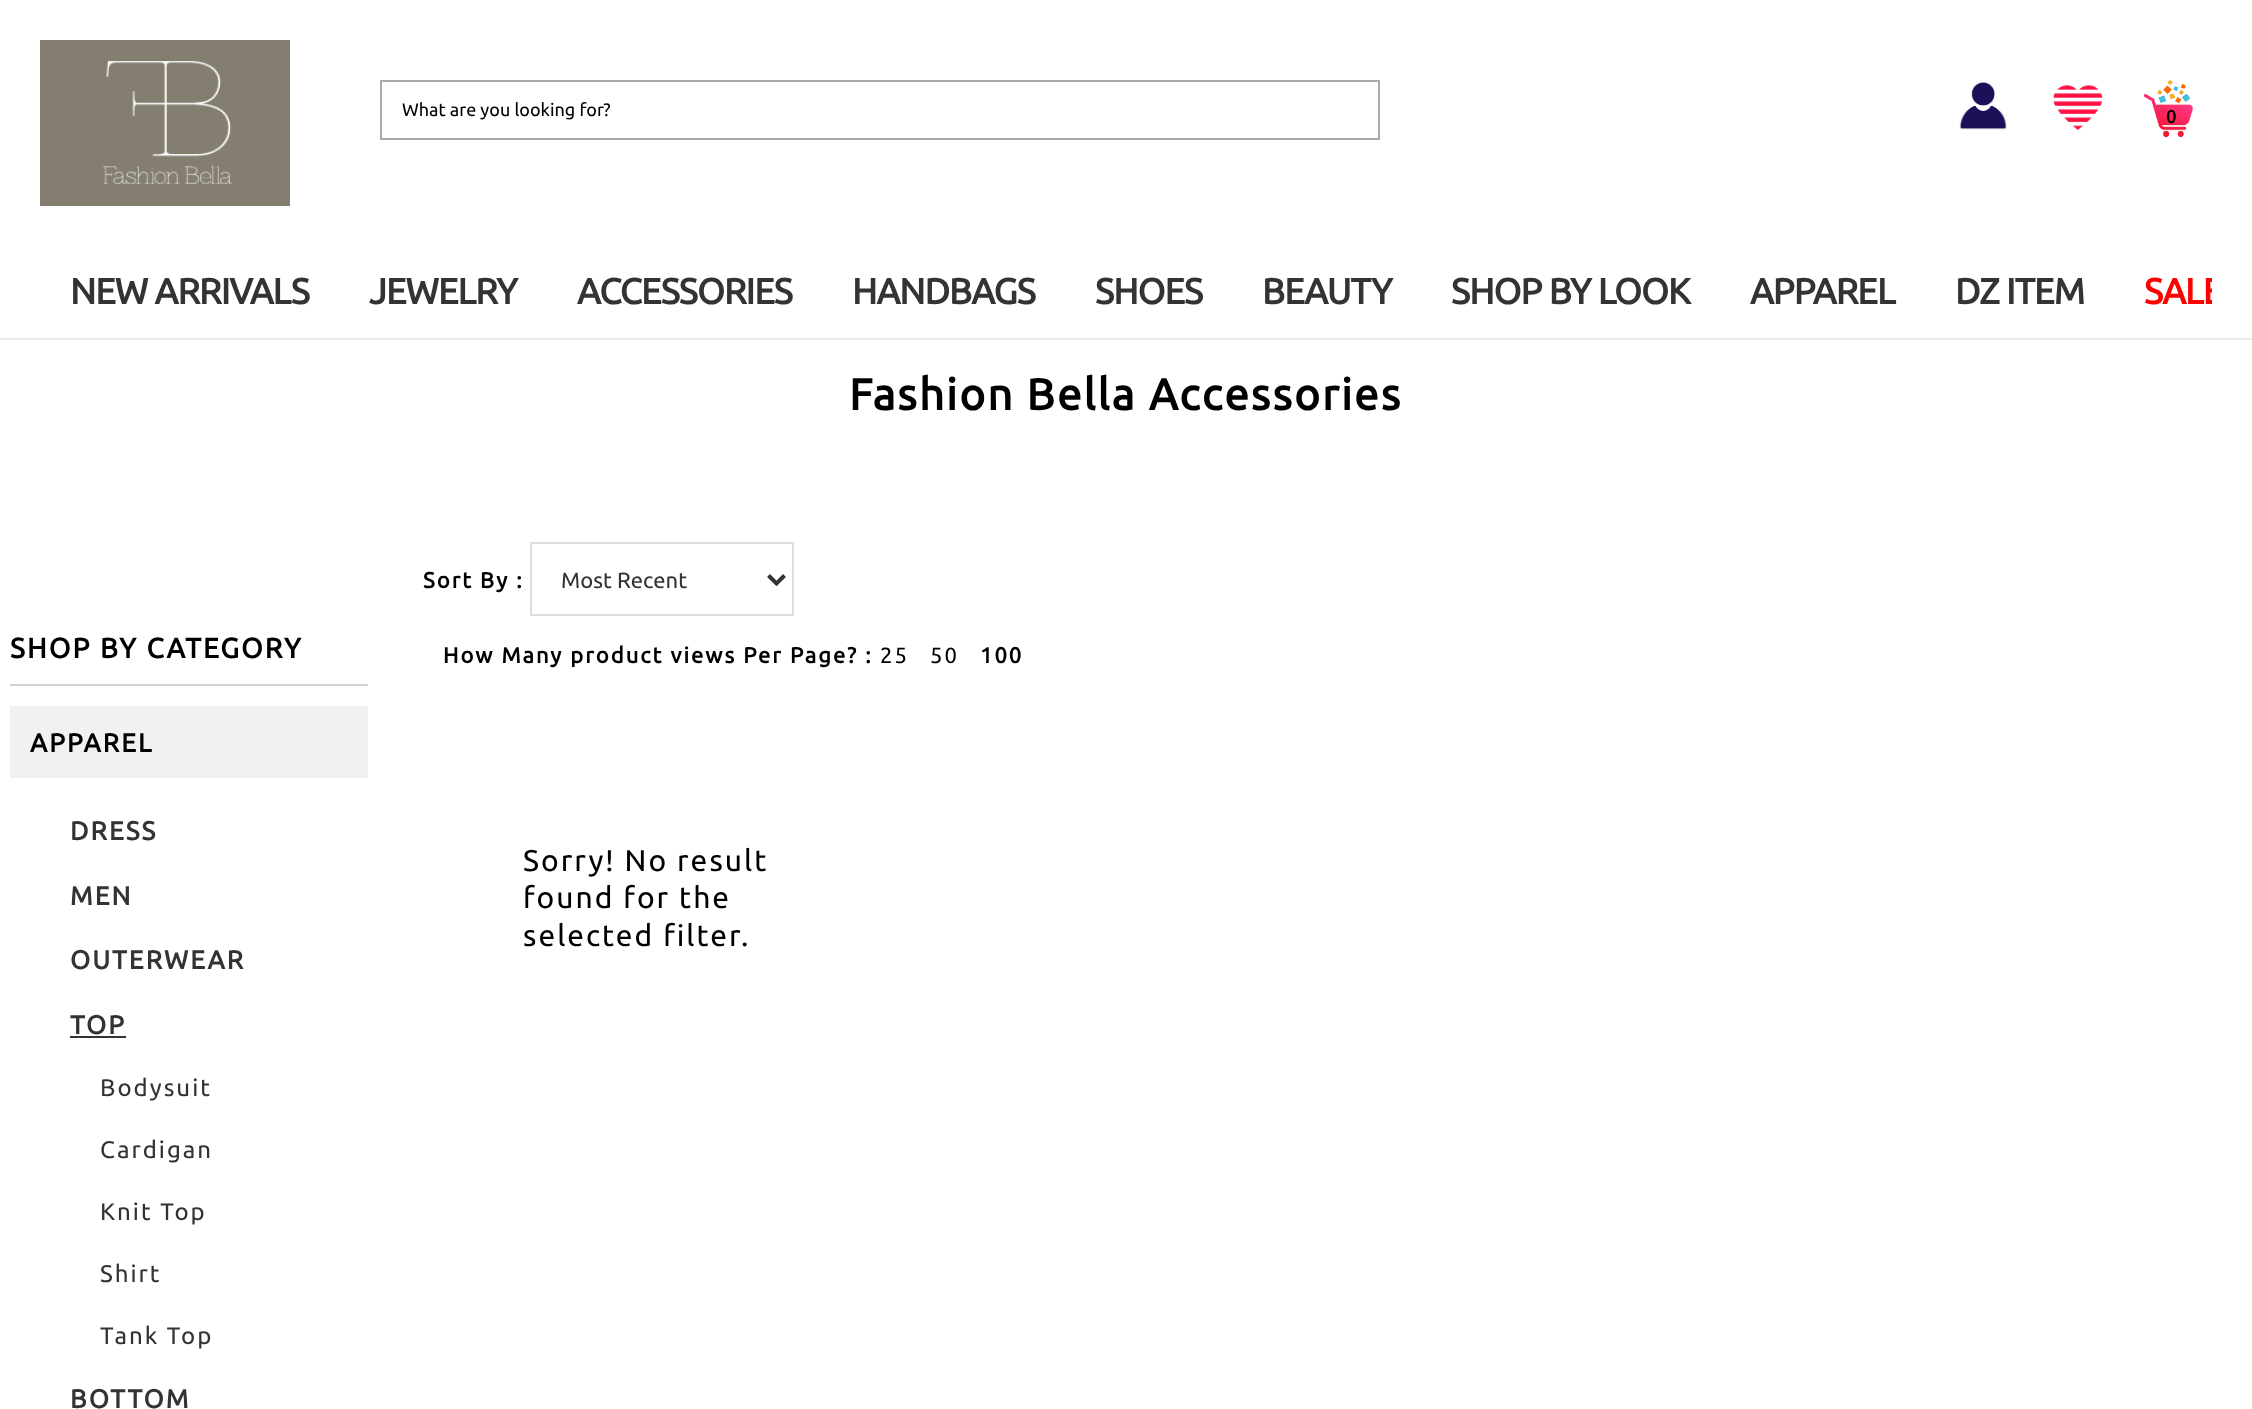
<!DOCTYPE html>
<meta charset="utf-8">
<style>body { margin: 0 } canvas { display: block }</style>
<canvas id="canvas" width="2252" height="1409"></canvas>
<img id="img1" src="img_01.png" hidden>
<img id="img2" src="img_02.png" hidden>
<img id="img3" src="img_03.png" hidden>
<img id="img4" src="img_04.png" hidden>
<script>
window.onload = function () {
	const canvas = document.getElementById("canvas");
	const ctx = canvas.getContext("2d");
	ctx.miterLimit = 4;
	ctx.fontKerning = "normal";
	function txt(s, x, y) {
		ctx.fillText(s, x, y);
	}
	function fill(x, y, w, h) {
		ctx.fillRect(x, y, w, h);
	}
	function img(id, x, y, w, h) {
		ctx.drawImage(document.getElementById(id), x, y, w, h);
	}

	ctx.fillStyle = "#FFFFFF";
	fill(0, 0, 2252, 1409);
	ctx.fillStyle = "#EAEAEA";
	fill(0, 338, 2252, 2);
	img("img1", 40, 40, 250, 166);
	ctx.strokeStyle = "#AAAAAA";
	ctx.lineWidth = 2;
	ctx.strokeRect(381, 81, 998, 58);
	img("img2", 1959, 82, 48, 48);
	img("img3", 2053, 85, 50, 45);
	img("img4", 2144, 80, 49, 58);
	ctx.fillStyle = "#D1D1D1";
	fill(10, 684, 358, 2);
	ctx.fillStyle = "#F1F1F1";
	fill(10, 706, 358, 72);
	ctx.fillStyle = "#333333";
	fill(70, 1036, 56, 2);
	ctx.strokeStyle = "#DCDCDC";
	ctx.strokeRect(531, 543, 262, 72);
	ctx.beginPath();
	ctx.moveTo(768.5, 575.5);
	ctx.lineTo(776.5, 583.5);
	ctx.lineTo(784.5, 575.5);
	ctx.strokeStyle = "#333333";
	ctx.lineWidth = 4;
	ctx.stroke();
	ctx.font = "18px Ubuntu";
	ctx.fillStyle = "#000000";
	txt("What are you looking for?", 402, 116);
	ctx.letterSpacing = "2px";
	ctx.font = "bold 18px Ubuntu";
	txt("0", 2166, 123);
	ctx.letterSpacing = "-1px";
	ctx.font = "bold 36px Ubuntu";
	ctx.fillStyle = "#333333";
	txt("NEW ARRIVALS", 70, 304);
	txt("JEWELRY", 369, 304);
	txt("ACCESSORIES", 577, 304);
	txt("HANDBAGS", 852, 304);
	txt("SHOES", 1095, 304);
	txt("BEAUTY", 1262, 304);
	txt("SHOP BY LOOK", 1451, 304);
	txt("APPAREL", 1750, 304);
	txt("DZ ITEM", 1955, 304);
	ctx.save();
	ctx.beginPath();
	ctx.rect(40, 252, 2172, 86);
	ctx.clip();
	ctx.fillStyle = "#FF0000";
	txt("SALE", 2144, 304);
	ctx.restore();
	ctx.letterSpacing = "2px";
	ctx.font = "bold 44px Ubuntu";
	ctx.fillStyle = "#000000";
	txt("Fashion Bella Accessories", 849, 410);
	ctx.font = "bold 28px Ubuntu";
	txt("SHOP BY CATEGORY", 10, 658);
	ctx.font = "bold 26px Ubuntu";
	txt("APPAREL", 30, 752);
	ctx.fillStyle = "#333333";
	txt("DRESS", 70, 840);
	txt("MEN", 70, 905);
	txt("OUTERWEAR", 70, 969);
	txt("TOP", 70, 1034);
	ctx.font = "24px Ubuntu";
	txt("Bodysuit", 100, 1096);
	txt("Cardigan", 100, 1158);
	txt("Knit Top", 100, 1220);
	txt("Shirt", 100, 1282);
	txt("Tank Top", 100, 1344);
	ctx.font = "bold 26px Ubuntu";
	txt("BOTTOM", 70, 1408);
	ctx.font = "bold 22px Ubuntu";
	ctx.fillStyle = "#000000";
	txt("Sort By :", 423, 588);
	ctx.letterSpacing = "0px";
	ctx.font = "22px Ubuntu";
	ctx.fillStyle = "#333333";
	txt("Most Recent", 561, 588);
	ctx.letterSpacing = "2px";
	ctx.font = "bold 22px Ubuntu";
	ctx.fillStyle = "#000000";
	txt("How Many product views Per Page? :", 443, 663);
	ctx.font = "22px Ubuntu";
	txt("25", 880, 663);
	txt("50", 930, 663);
	ctx.font = "bold 22px Ubuntu";
	txt("100", 980, 663);
	ctx.font = "30px Ubuntu";
	txt("Sorry! No result", 523, 871);
	txt("found for the", 523, 908);
	txt("selected filter.", 523, 946);
};
</script>
